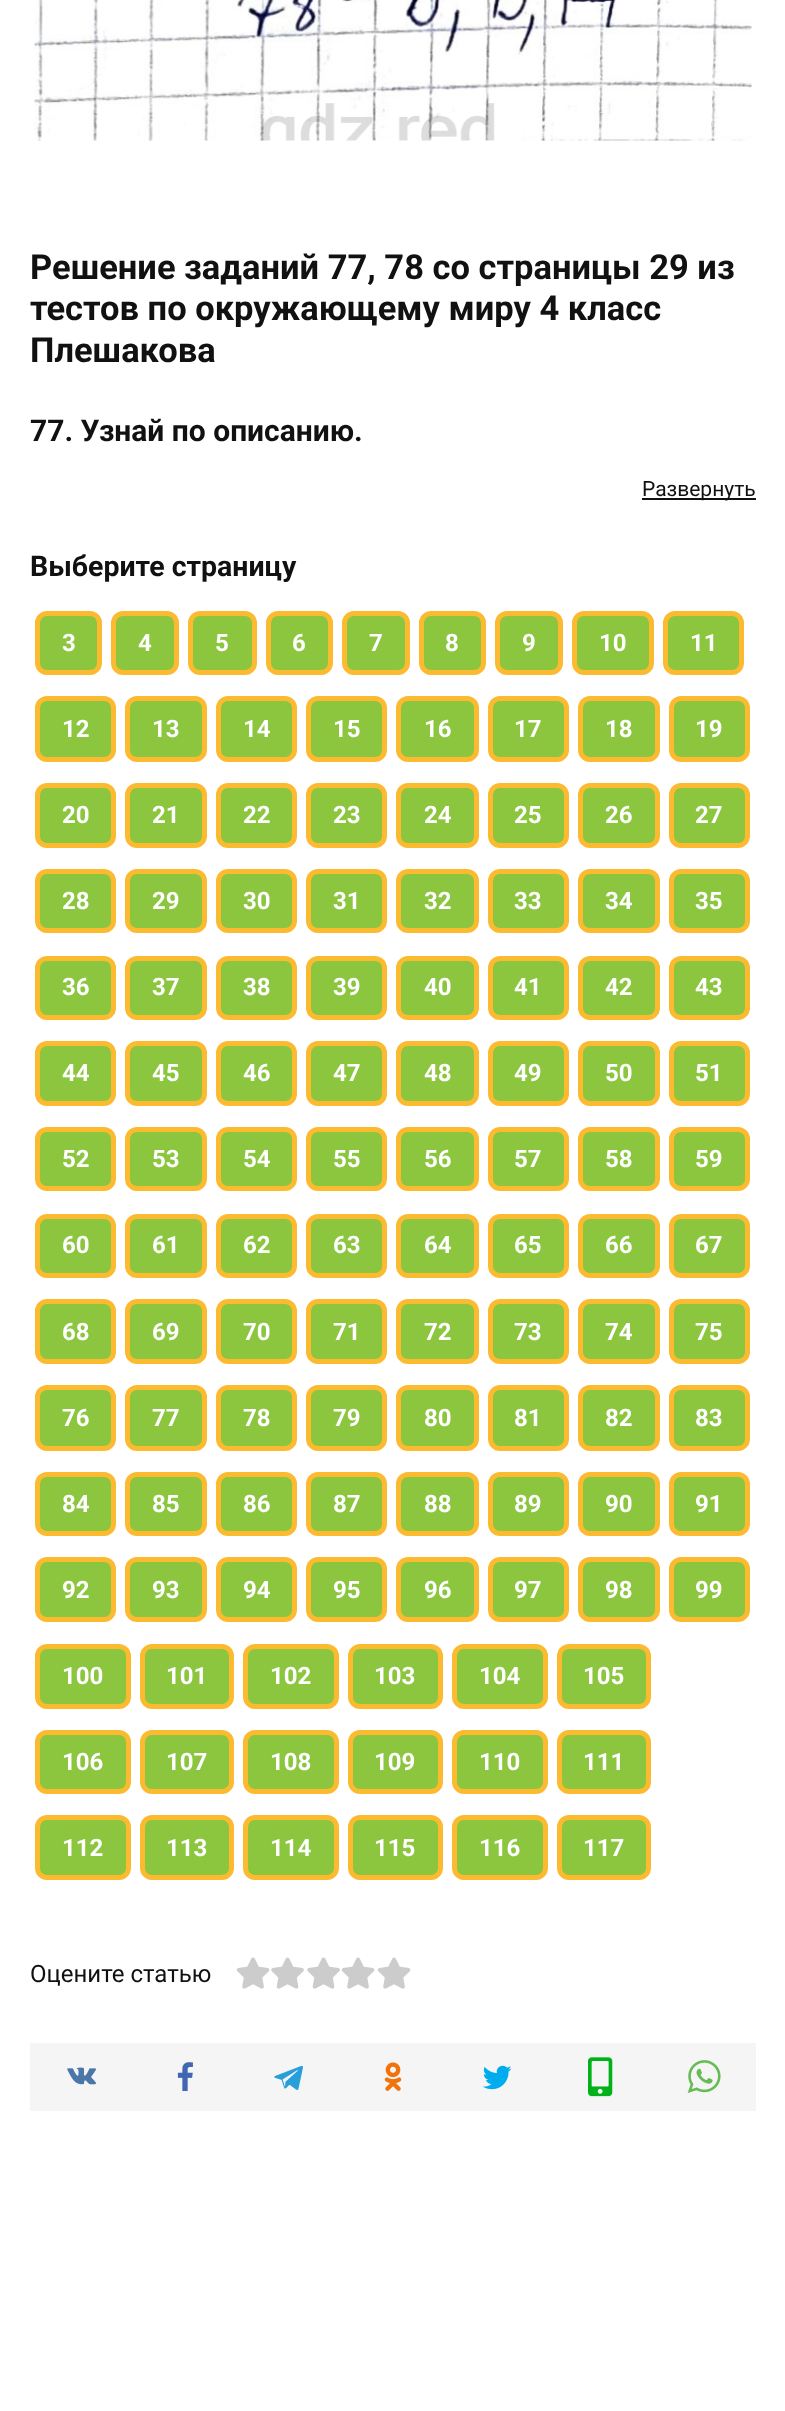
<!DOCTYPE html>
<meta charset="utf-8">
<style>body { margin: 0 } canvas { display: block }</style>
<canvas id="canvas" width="785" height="2411"></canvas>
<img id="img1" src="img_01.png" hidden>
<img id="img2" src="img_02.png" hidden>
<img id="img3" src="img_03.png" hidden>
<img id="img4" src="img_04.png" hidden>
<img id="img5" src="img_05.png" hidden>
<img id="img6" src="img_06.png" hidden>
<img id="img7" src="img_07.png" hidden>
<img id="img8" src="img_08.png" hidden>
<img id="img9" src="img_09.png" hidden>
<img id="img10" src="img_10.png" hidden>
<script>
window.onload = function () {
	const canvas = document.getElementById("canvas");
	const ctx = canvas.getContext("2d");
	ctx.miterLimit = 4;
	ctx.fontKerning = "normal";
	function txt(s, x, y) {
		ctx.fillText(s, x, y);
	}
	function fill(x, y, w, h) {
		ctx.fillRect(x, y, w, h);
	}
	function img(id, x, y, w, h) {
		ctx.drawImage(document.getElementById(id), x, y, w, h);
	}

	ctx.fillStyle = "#FFFFFF";
	fill(0, 0, 785, 2411);
	img("img1", 34, 0, 718, 141);
	ctx.fillStyle = "#111111";
	fill(642, 498, 114, 2);
	ctx.fillStyle = "#8BC63E";
	ctx.beginPath();
	ctx.roundRect(37.5, 613.5, 62, 59, 9.5);
	ctx.fill();
	ctx.strokeStyle = "#FCBA30";
	ctx.lineWidth = 5;
	ctx.stroke();
	ctx.beginPath();
	ctx.roundRect(113.5, 613.5, 63, 59, 9.5);
	ctx.fill();
	ctx.stroke();
	ctx.beginPath();
	ctx.roundRect(190.5, 613.5, 64, 59, 9.5);
	ctx.fill();
	ctx.stroke();
	ctx.beginPath();
	ctx.roundRect(268.5, 613.5, 62, 59, 9.5);
	ctx.fill();
	ctx.stroke();
	ctx.beginPath();
	ctx.roundRect(344.5, 613.5, 63, 59, 9.5);
	ctx.fill();
	ctx.stroke();
	ctx.beginPath();
	ctx.roundRect(421.5, 613.5, 62, 59, 9.5);
	ctx.fill();
	ctx.stroke();
	ctx.beginPath();
	ctx.roundRect(497.5, 613.5, 63, 59, 9.5);
	ctx.fill();
	ctx.stroke();
	ctx.beginPath();
	ctx.roundRect(574.5, 613.5, 77, 59, 9.5);
	ctx.fill();
	ctx.stroke();
	ctx.beginPath();
	ctx.roundRect(665.5, 613.5, 76, 59, 9.5);
	ctx.fill();
	ctx.stroke();
	ctx.beginPath();
	ctx.roundRect(37.5, 698.5, 76, 61, 9.5);
	ctx.fill();
	ctx.stroke();
	ctx.beginPath();
	ctx.roundRect(127.5, 698.5, 77, 61, 9.5);
	ctx.fill();
	ctx.stroke();
	ctx.beginPath();
	ctx.roundRect(218.5, 698.5, 76, 61, 9.5);
	ctx.fill();
	ctx.stroke();
	ctx.beginPath();
	ctx.roundRect(308.5, 698.5, 76, 61, 9.5);
	ctx.fill();
	ctx.stroke();
	ctx.beginPath();
	ctx.roundRect(398.5, 698.5, 78, 61, 9.5);
	ctx.fill();
	ctx.stroke();
	ctx.beginPath();
	ctx.roundRect(490.5, 698.5, 76, 61, 9.5);
	ctx.fill();
	ctx.stroke();
	ctx.beginPath();
	ctx.roundRect(580.5, 698.5, 77, 61, 9.5);
	ctx.fill();
	ctx.stroke();
	ctx.beginPath();
	ctx.roundRect(671.5, 698.5, 76, 61, 9.5);
	ctx.fill();
	ctx.stroke();
	ctx.beginPath();
	ctx.roundRect(37.5, 785.5, 76, 60, 9.5);
	ctx.fill();
	ctx.stroke();
	ctx.beginPath();
	ctx.roundRect(127.5, 785.5, 77, 60, 9.5);
	ctx.fill();
	ctx.stroke();
	ctx.beginPath();
	ctx.roundRect(218.5, 785.5, 76, 60, 9.5);
	ctx.fill();
	ctx.stroke();
	ctx.beginPath();
	ctx.roundRect(308.5, 785.5, 76, 60, 9.5);
	ctx.fill();
	ctx.stroke();
	ctx.beginPath();
	ctx.roundRect(398.5, 785.5, 78, 60, 9.5);
	ctx.fill();
	ctx.stroke();
	ctx.beginPath();
	ctx.roundRect(490.5, 785.5, 76, 60, 9.5);
	ctx.fill();
	ctx.stroke();
	ctx.beginPath();
	ctx.roundRect(580.5, 785.5, 77, 60, 9.5);
	ctx.fill();
	ctx.stroke();
	ctx.beginPath();
	ctx.roundRect(671.5, 785.5, 76, 60, 9.5);
	ctx.fill();
	ctx.stroke();
	ctx.beginPath();
	ctx.roundRect(37.5, 871.5, 76, 59, 9.5);
	ctx.fill();
	ctx.stroke();
	ctx.beginPath();
	ctx.roundRect(127.5, 871.5, 77, 59, 9.5);
	ctx.fill();
	ctx.stroke();
	ctx.beginPath();
	ctx.roundRect(218.5, 871.5, 76, 59, 9.5);
	ctx.fill();
	ctx.stroke();
	ctx.beginPath();
	ctx.roundRect(308.5, 871.5, 76, 59, 9.5);
	ctx.fill();
	ctx.stroke();
	ctx.beginPath();
	ctx.roundRect(398.5, 871.5, 78, 59, 9.5);
	ctx.fill();
	ctx.stroke();
	ctx.beginPath();
	ctx.roundRect(490.5, 871.5, 76, 59, 9.5);
	ctx.fill();
	ctx.stroke();
	ctx.beginPath();
	ctx.roundRect(580.5, 871.5, 77, 59, 9.5);
	ctx.fill();
	ctx.stroke();
	ctx.beginPath();
	ctx.roundRect(671.5, 871.5, 76, 59, 9.5);
	ctx.fill();
	ctx.stroke();
	ctx.beginPath();
	ctx.roundRect(37.5, 958.5, 76, 59, 9.5);
	ctx.fill();
	ctx.stroke();
	ctx.beginPath();
	ctx.roundRect(127.5, 958.5, 77, 59, 9.5);
	ctx.fill();
	ctx.stroke();
	ctx.beginPath();
	ctx.roundRect(218.5, 958.5, 76, 59, 9.5);
	ctx.fill();
	ctx.stroke();
	ctx.beginPath();
	ctx.roundRect(308.5, 958.5, 76, 59, 9.5);
	ctx.fill();
	ctx.stroke();
	ctx.beginPath();
	ctx.roundRect(398.5, 958.5, 78, 59, 9.5);
	ctx.fill();
	ctx.stroke();
	ctx.beginPath();
	ctx.roundRect(490.5, 958.5, 76, 59, 9.5);
	ctx.fill();
	ctx.stroke();
	ctx.beginPath();
	ctx.roundRect(580.5, 958.5, 77, 59, 9.5);
	ctx.fill();
	ctx.stroke();
	ctx.beginPath();
	ctx.roundRect(671.5, 958.5, 76, 59, 9.5);
	ctx.fill();
	ctx.stroke();
	ctx.beginPath();
	ctx.roundRect(37.5, 1043.5, 76, 60, 9.5);
	ctx.fill();
	ctx.stroke();
	ctx.beginPath();
	ctx.roundRect(127.5, 1043.5, 77, 60, 9.5);
	ctx.fill();
	ctx.stroke();
	ctx.beginPath();
	ctx.roundRect(218.5, 1043.5, 76, 60, 9.5);
	ctx.fill();
	ctx.stroke();
	ctx.beginPath();
	ctx.roundRect(308.5, 1043.5, 76, 60, 9.5);
	ctx.fill();
	ctx.stroke();
	ctx.beginPath();
	ctx.roundRect(398.5, 1043.5, 78, 60, 9.5);
	ctx.fill();
	ctx.stroke();
	ctx.beginPath();
	ctx.roundRect(490.5, 1043.5, 76, 60, 9.5);
	ctx.fill();
	ctx.stroke();
	ctx.beginPath();
	ctx.roundRect(580.5, 1043.5, 77, 60, 9.5);
	ctx.fill();
	ctx.stroke();
	ctx.beginPath();
	ctx.roundRect(671.5, 1043.5, 76, 60, 9.5);
	ctx.fill();
	ctx.stroke();
	ctx.beginPath();
	ctx.roundRect(37.5, 1129.5, 76, 59, 9.5);
	ctx.fill();
	ctx.stroke();
	ctx.beginPath();
	ctx.roundRect(127.5, 1129.5, 77, 59, 9.5);
	ctx.fill();
	ctx.stroke();
	ctx.beginPath();
	ctx.roundRect(218.5, 1129.5, 76, 59, 9.5);
	ctx.fill();
	ctx.stroke();
	ctx.beginPath();
	ctx.roundRect(308.5, 1129.5, 76, 59, 9.5);
	ctx.fill();
	ctx.stroke();
	ctx.beginPath();
	ctx.roundRect(398.5, 1129.5, 78, 59, 9.5);
	ctx.fill();
	ctx.stroke();
	ctx.beginPath();
	ctx.roundRect(490.5, 1129.5, 76, 59, 9.5);
	ctx.fill();
	ctx.stroke();
	ctx.beginPath();
	ctx.roundRect(580.5, 1129.5, 77, 59, 9.5);
	ctx.fill();
	ctx.stroke();
	ctx.beginPath();
	ctx.roundRect(671.5, 1129.5, 76, 59, 9.5);
	ctx.fill();
	ctx.stroke();
	ctx.beginPath();
	ctx.roundRect(37.5, 1216.5, 76, 59, 9.5);
	ctx.fill();
	ctx.stroke();
	ctx.beginPath();
	ctx.roundRect(127.5, 1216.5, 77, 59, 9.5);
	ctx.fill();
	ctx.stroke();
	ctx.beginPath();
	ctx.roundRect(218.5, 1216.5, 76, 59, 9.5);
	ctx.fill();
	ctx.stroke();
	ctx.beginPath();
	ctx.roundRect(308.5, 1216.5, 76, 59, 9.5);
	ctx.fill();
	ctx.stroke();
	ctx.beginPath();
	ctx.roundRect(398.5, 1216.5, 78, 59, 9.5);
	ctx.fill();
	ctx.stroke();
	ctx.beginPath();
	ctx.roundRect(490.5, 1216.5, 76, 59, 9.5);
	ctx.fill();
	ctx.stroke();
	ctx.beginPath();
	ctx.roundRect(580.5, 1216.5, 77, 59, 9.5);
	ctx.fill();
	ctx.stroke();
	ctx.beginPath();
	ctx.roundRect(671.5, 1216.5, 76, 59, 9.5);
	ctx.fill();
	ctx.stroke();
	ctx.beginPath();
	ctx.roundRect(37.5, 1301.5, 76, 60, 9.5);
	ctx.fill();
	ctx.stroke();
	ctx.beginPath();
	ctx.roundRect(127.5, 1301.5, 77, 60, 9.5);
	ctx.fill();
	ctx.stroke();
	ctx.beginPath();
	ctx.roundRect(218.5, 1301.5, 76, 60, 9.5);
	ctx.fill();
	ctx.stroke();
	ctx.beginPath();
	ctx.roundRect(308.5, 1301.5, 76, 60, 9.5);
	ctx.fill();
	ctx.stroke();
	ctx.beginPath();
	ctx.roundRect(398.5, 1301.5, 78, 60, 9.5);
	ctx.fill();
	ctx.stroke();
	ctx.beginPath();
	ctx.roundRect(490.5, 1301.5, 76, 60, 9.5);
	ctx.fill();
	ctx.stroke();
	ctx.beginPath();
	ctx.roundRect(580.5, 1301.5, 77, 60, 9.5);
	ctx.fill();
	ctx.stroke();
	ctx.beginPath();
	ctx.roundRect(671.5, 1301.5, 76, 60, 9.5);
	ctx.fill();
	ctx.stroke();
	ctx.beginPath();
	ctx.roundRect(37.5, 1387.5, 76, 61, 9.5);
	ctx.fill();
	ctx.stroke();
	ctx.beginPath();
	ctx.roundRect(127.5, 1387.5, 77, 61, 9.5);
	ctx.fill();
	ctx.stroke();
	ctx.beginPath();
	ctx.roundRect(218.5, 1387.5, 76, 61, 9.5);
	ctx.fill();
	ctx.stroke();
	ctx.beginPath();
	ctx.roundRect(308.5, 1387.5, 76, 61, 9.5);
	ctx.fill();
	ctx.stroke();
	ctx.beginPath();
	ctx.roundRect(398.5, 1387.5, 78, 61, 9.5);
	ctx.fill();
	ctx.stroke();
	ctx.beginPath();
	ctx.roundRect(490.5, 1387.5, 76, 61, 9.5);
	ctx.fill();
	ctx.stroke();
	ctx.beginPath();
	ctx.roundRect(580.5, 1387.5, 77, 61, 9.5);
	ctx.fill();
	ctx.stroke();
	ctx.beginPath();
	ctx.roundRect(671.5, 1387.5, 76, 61, 9.5);
	ctx.fill();
	ctx.stroke();
	ctx.beginPath();
	ctx.roundRect(37.5, 1474.5, 76, 59, 9.5);
	ctx.fill();
	ctx.stroke();
	ctx.beginPath();
	ctx.roundRect(127.5, 1474.5, 77, 59, 9.5);
	ctx.fill();
	ctx.stroke();
	ctx.beginPath();
	ctx.roundRect(218.5, 1474.5, 76, 59, 9.5);
	ctx.fill();
	ctx.stroke();
	ctx.beginPath();
	ctx.roundRect(308.5, 1474.5, 76, 59, 9.5);
	ctx.fill();
	ctx.stroke();
	ctx.beginPath();
	ctx.roundRect(398.5, 1474.5, 78, 59, 9.5);
	ctx.fill();
	ctx.stroke();
	ctx.beginPath();
	ctx.roundRect(490.5, 1474.5, 76, 59, 9.5);
	ctx.fill();
	ctx.stroke();
	ctx.beginPath();
	ctx.roundRect(580.5, 1474.5, 77, 59, 9.5);
	ctx.fill();
	ctx.stroke();
	ctx.beginPath();
	ctx.roundRect(671.5, 1474.5, 76, 59, 9.5);
	ctx.fill();
	ctx.stroke();
	ctx.beginPath();
	ctx.roundRect(37.5, 1559.5, 76, 60, 9.5);
	ctx.fill();
	ctx.stroke();
	ctx.beginPath();
	ctx.roundRect(127.5, 1559.5, 77, 60, 9.5);
	ctx.fill();
	ctx.stroke();
	ctx.beginPath();
	ctx.roundRect(218.5, 1559.5, 76, 60, 9.5);
	ctx.fill();
	ctx.stroke();
	ctx.beginPath();
	ctx.roundRect(308.5, 1559.5, 76, 60, 9.5);
	ctx.fill();
	ctx.stroke();
	ctx.beginPath();
	ctx.roundRect(398.5, 1559.5, 78, 60, 9.5);
	ctx.fill();
	ctx.stroke();
	ctx.beginPath();
	ctx.roundRect(490.5, 1559.5, 76, 60, 9.5);
	ctx.fill();
	ctx.stroke();
	ctx.beginPath();
	ctx.roundRect(580.5, 1559.5, 77, 60, 9.5);
	ctx.fill();
	ctx.stroke();
	ctx.beginPath();
	ctx.roundRect(671.5, 1559.5, 76, 60, 9.5);
	ctx.fill();
	ctx.stroke();
	ctx.beginPath();
	ctx.roundRect(37.5, 1646.5, 91, 60, 9.5);
	ctx.fill();
	ctx.stroke();
	ctx.beginPath();
	ctx.roundRect(142.5, 1646.5, 89, 60, 9.5);
	ctx.fill();
	ctx.stroke();
	ctx.beginPath();
	ctx.roundRect(245.5, 1646.5, 91, 60, 9.5);
	ctx.fill();
	ctx.stroke();
	ctx.beginPath();
	ctx.roundRect(350.5, 1646.5, 90, 60, 9.5);
	ctx.fill();
	ctx.stroke();
	ctx.beginPath();
	ctx.roundRect(454.5, 1646.5, 91, 60, 9.5);
	ctx.fill();
	ctx.stroke();
	ctx.beginPath();
	ctx.roundRect(559.5, 1646.5, 89, 60, 9.5);
	ctx.fill();
	ctx.stroke();
	ctx.beginPath();
	ctx.roundRect(37.5, 1732.5, 91, 59, 9.5);
	ctx.fill();
	ctx.stroke();
	ctx.beginPath();
	ctx.roundRect(142.5, 1732.5, 89, 59, 9.5);
	ctx.fill();
	ctx.stroke();
	ctx.beginPath();
	ctx.roundRect(245.5, 1732.5, 91, 59, 9.5);
	ctx.fill();
	ctx.stroke();
	ctx.beginPath();
	ctx.roundRect(350.5, 1732.5, 90, 59, 9.5);
	ctx.fill();
	ctx.stroke();
	ctx.beginPath();
	ctx.roundRect(454.5, 1732.5, 91, 59, 9.5);
	ctx.fill();
	ctx.stroke();
	ctx.beginPath();
	ctx.roundRect(559.5, 1732.5, 89, 59, 9.5);
	ctx.fill();
	ctx.stroke();
	ctx.beginPath();
	ctx.roundRect(37.5, 1817.5, 91, 60, 9.5);
	ctx.fill();
	ctx.stroke();
	ctx.beginPath();
	ctx.roundRect(142.5, 1817.5, 89, 60, 9.5);
	ctx.fill();
	ctx.stroke();
	ctx.beginPath();
	ctx.roundRect(245.5, 1817.5, 91, 60, 9.5);
	ctx.fill();
	ctx.stroke();
	ctx.beginPath();
	ctx.roundRect(350.5, 1817.5, 90, 60, 9.5);
	ctx.fill();
	ctx.stroke();
	ctx.beginPath();
	ctx.roundRect(454.5, 1817.5, 91, 60, 9.5);
	ctx.fill();
	ctx.stroke();
	ctx.beginPath();
	ctx.roundRect(559.5, 1817.5, 89, 60, 9.5);
	ctx.fill();
	ctx.stroke();
	img("img2", 236, 1957, 34, 32);
	img("img3", 271, 1957, 33, 32);
	img("img3", 307, 1957, 33, 32);
	img("img2", 341, 1957, 34, 32);
	img("img2", 377, 1957, 34, 32);
	ctx.fillStyle = "#F5F5F5";
	fill(30, 2043, 726, 68);
	img("img4", 67, 2067, 29, 18);
	img("img5", 177, 2062, 16, 29);
	img("img6", 274, 2065, 29, 25);
	img("img7", 384, 2062, 18, 29);
	img("img8", 482, 2065, 30, 25);
	img("img9", 588, 2057, 25, 40);
	img("img10", 687, 2060, 34, 33);
	ctx.font = "bold 34.5px Roboto";
	ctx.fillStyle = "#111111";
	txt("Решение заданий 77, 78 со страницы 29 из", 30, 279);
	txt("тестов по окружающему миру 4 класс", 30, 320);
	txt("Плешакова", 30, 362);
	ctx.font = "bold 30px Roboto";
	txt("77. Узнай по описанию.", 30, 441);
	ctx.font = "21px Roboto";
	txt("Развернуть", 642, 496);
	ctx.font = "bold 28.5px Roboto";
	txt("Выберите страницу", 30, 576);
	ctx.font = "bold 24px Roboto";
	ctx.fillStyle = "#FFFFFF";
	txt("3", 62, 651);
	txt("4", 138, 651);
	txt("5", 215, 651);
	txt("6", 292, 651);
	txt("7", 369, 651);
	txt("8", 445, 651);
	txt("9", 522, 651);
	txt("10", 599, 651);
	txt("11", 690, 651);
	txt("12", 62, 737);
	txt("13", 152, 737);
	txt("14", 243, 737);
	txt("15", 333, 737);
	txt("16", 424, 737);
	txt("17", 514, 737);
	txt("18", 605, 737);
	txt("19", 695, 737);
	txt("20", 62, 823);
	txt("21", 152, 823);
	txt("22", 243, 823);
	txt("23", 333, 823);
	txt("24", 424, 823);
	txt("25", 514, 823);
	txt("26", 605, 823);
	txt("27", 695, 823);
	txt("28", 62, 909);
	txt("29", 152, 909);
	txt("30", 243, 909);
	txt("31", 333, 909);
	txt("32", 424, 909);
	txt("33", 514, 909);
	txt("34", 605, 909);
	txt("35", 695, 909);
	txt("36", 62, 995);
	txt("37", 152, 995);
	txt("38", 243, 995);
	txt("39", 333, 995);
	txt("40", 424, 995);
	txt("41", 514, 995);
	txt("42", 605, 995);
	txt("43", 695, 995);
	txt("44", 62, 1081);
	txt("45", 152, 1081);
	txt("46", 243, 1081);
	txt("47", 333, 1081);
	txt("48", 424, 1081);
	txt("49", 514, 1081);
	txt("50", 605, 1081);
	txt("51", 695, 1081);
	txt("52", 62, 1167);
	txt("53", 152, 1167);
	txt("54", 243, 1167);
	txt("55", 333, 1167);
	txt("56", 424, 1167);
	txt("57", 514, 1167);
	txt("58", 605, 1167);
	txt("59", 695, 1167);
	txt("60", 62, 1253);
	txt("61", 152, 1253);
	txt("62", 243, 1253);
	txt("63", 333, 1253);
	txt("64", 424, 1253);
	txt("65", 514, 1253);
	txt("66", 605, 1253);
	txt("67", 695, 1253);
	txt("68", 62, 1340);
	txt("69", 152, 1340);
	txt("70", 243, 1340);
	txt("71", 333, 1340);
	txt("72", 424, 1340);
	txt("73", 514, 1340);
	txt("74", 605, 1340);
	txt("75", 695, 1340);
	txt("76", 62, 1426);
	txt("77", 152, 1426);
	txt("78", 243, 1426);
	txt("79", 333, 1426);
	txt("80", 424, 1426);
	txt("81", 514, 1426);
	txt("82", 605, 1426);
	txt("83", 695, 1426);
	txt("84", 62, 1512);
	txt("85", 152, 1512);
	txt("86", 243, 1512);
	txt("87", 333, 1512);
	txt("88", 424, 1512);
	txt("89", 514, 1512);
	txt("90", 605, 1512);
	txt("91", 695, 1512);
	txt("92", 62, 1598);
	txt("93", 152, 1598);
	txt("94", 243, 1598);
	txt("95", 333, 1598);
	txt("96", 424, 1598);
	txt("97", 514, 1598);
	txt("98", 605, 1598);
	txt("99", 695, 1598);
	txt("100", 62, 1684);
	txt("101", 166, 1684);
	txt("102", 270, 1684);
	txt("103", 374, 1684);
	txt("104", 479, 1684);
	txt("105", 583, 1684);
	txt("106", 62, 1770);
	txt("107", 166, 1770);
	txt("108", 270, 1770);
	txt("109", 374, 1770);
	txt("110", 479, 1770);
	txt("111", 583, 1770);
	txt("112", 62, 1856);
	txt("113", 166, 1856);
	txt("114", 270, 1856);
	txt("115", 374, 1856);
	txt("116", 479, 1856);
	txt("117", 583, 1856);
	ctx.font = "24px Roboto";
	ctx.fillStyle = "#111111";
	txt("Оцените статью", 30, 1982);
};
</script>
